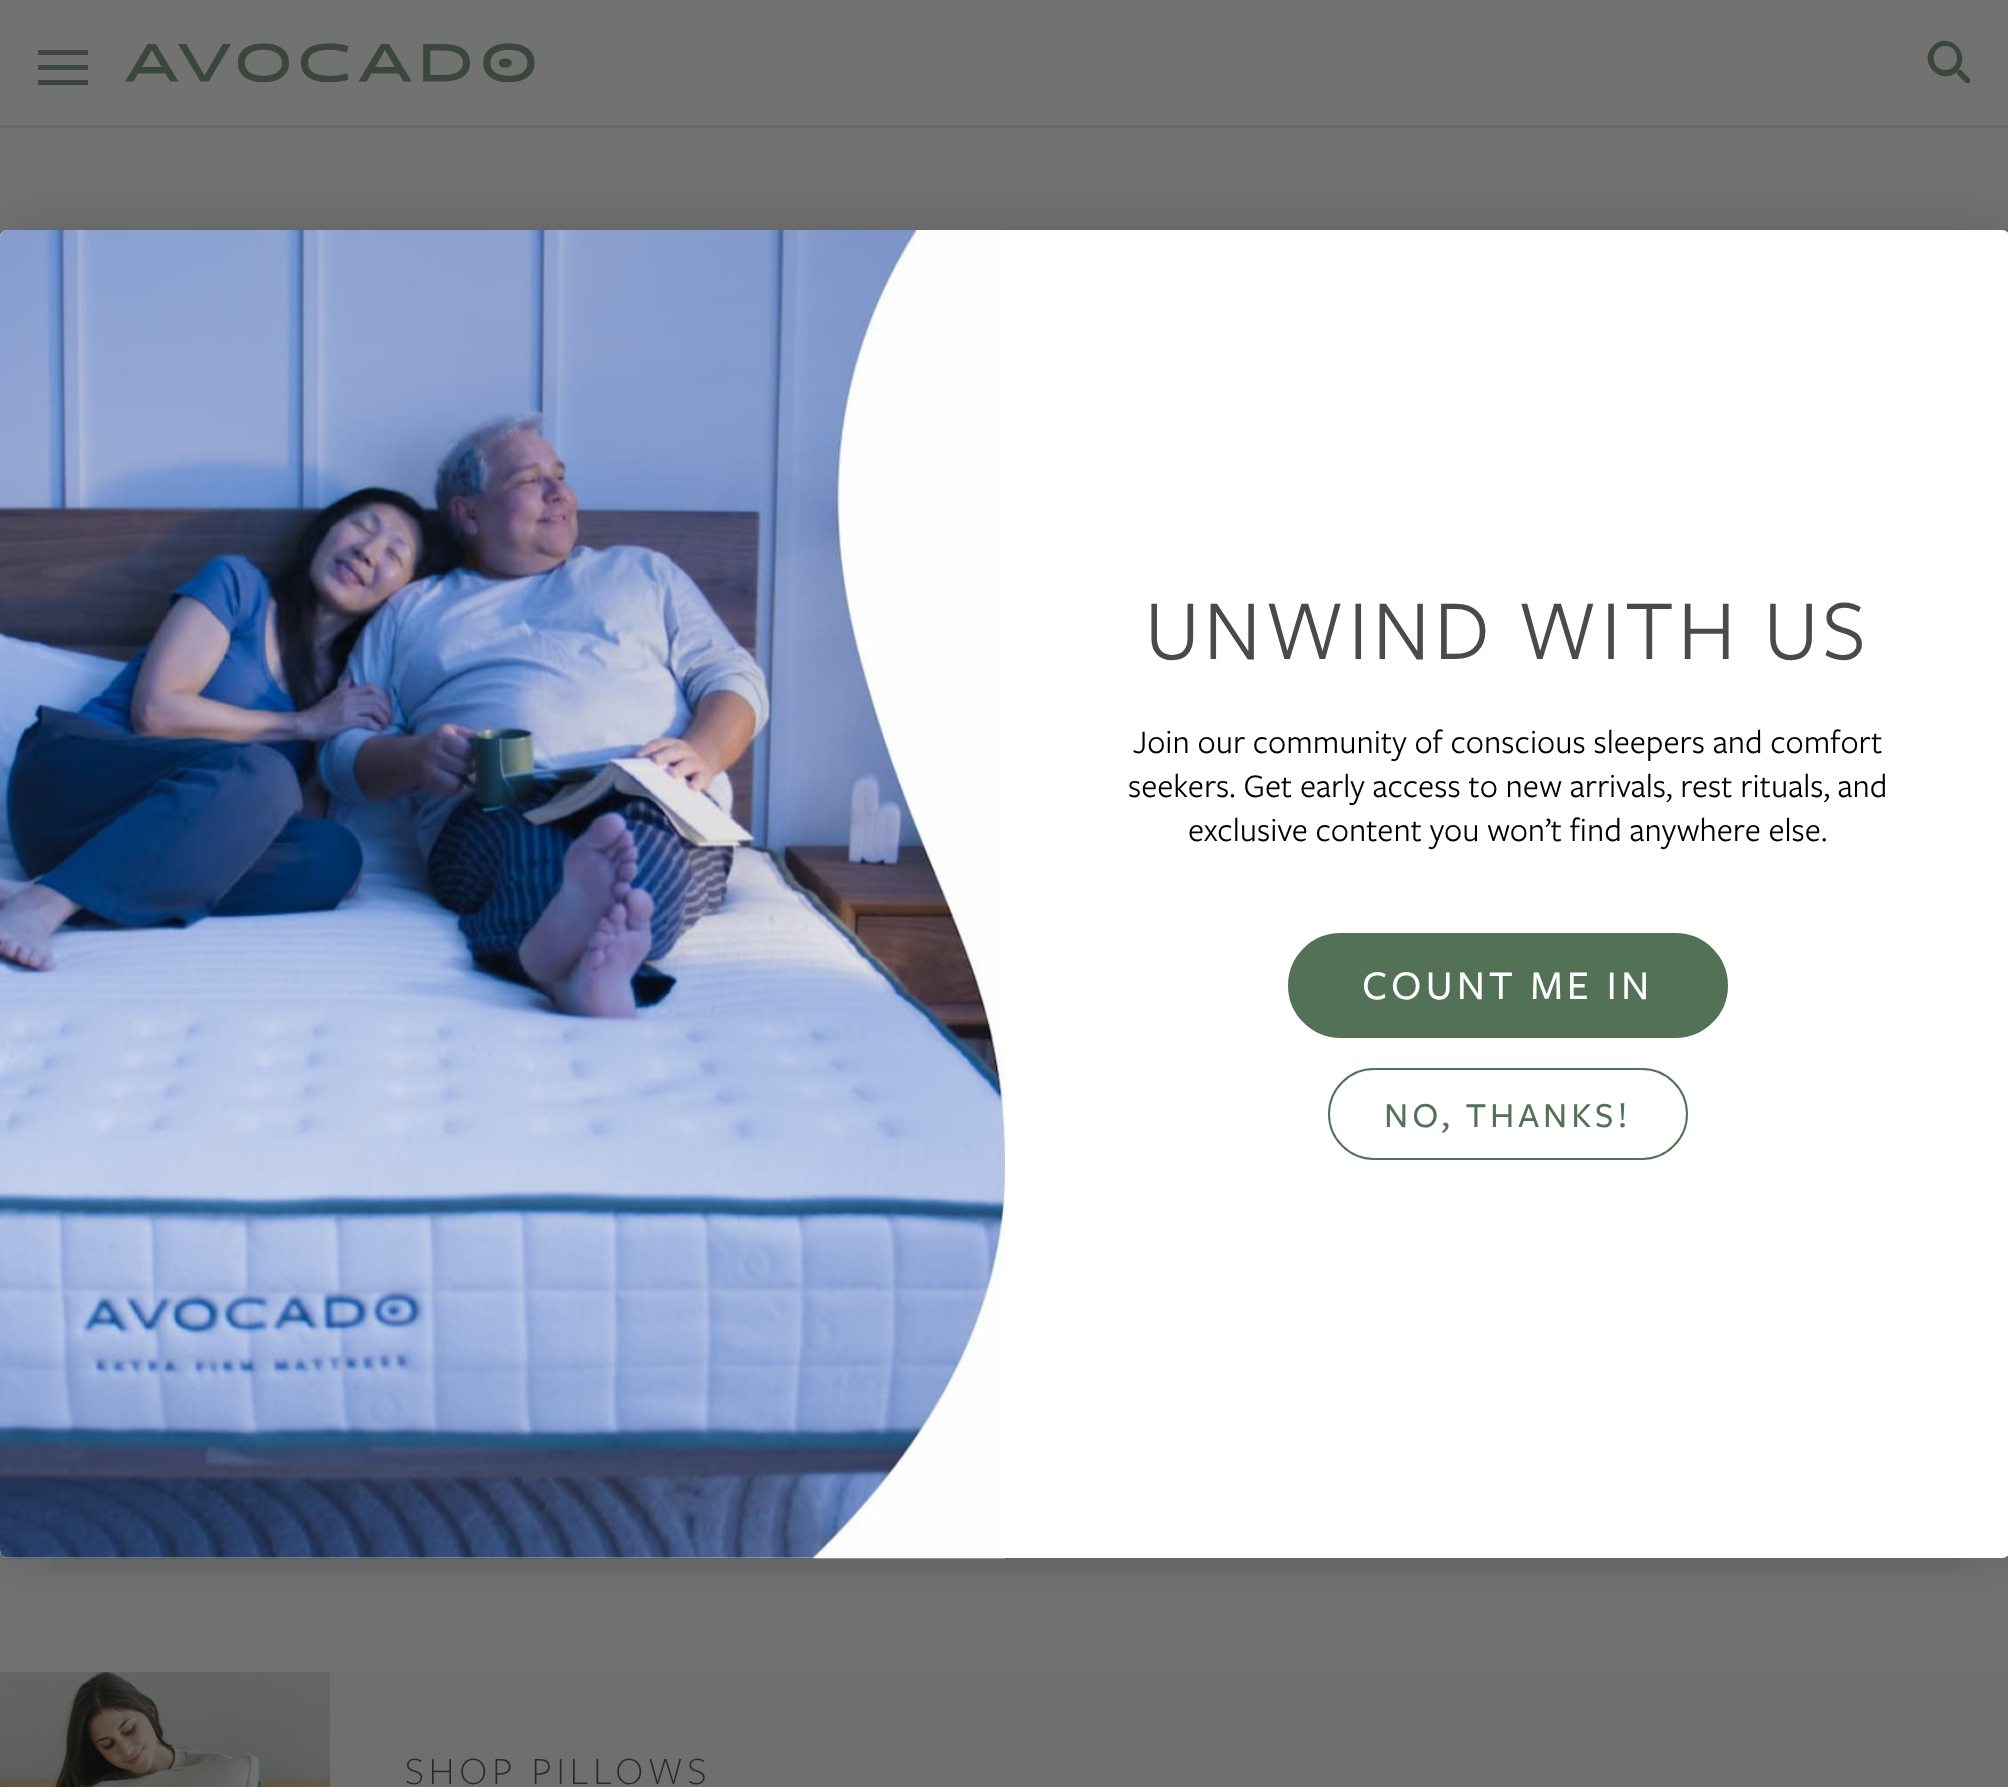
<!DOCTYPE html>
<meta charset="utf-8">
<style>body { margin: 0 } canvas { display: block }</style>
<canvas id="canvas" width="2008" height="1787"></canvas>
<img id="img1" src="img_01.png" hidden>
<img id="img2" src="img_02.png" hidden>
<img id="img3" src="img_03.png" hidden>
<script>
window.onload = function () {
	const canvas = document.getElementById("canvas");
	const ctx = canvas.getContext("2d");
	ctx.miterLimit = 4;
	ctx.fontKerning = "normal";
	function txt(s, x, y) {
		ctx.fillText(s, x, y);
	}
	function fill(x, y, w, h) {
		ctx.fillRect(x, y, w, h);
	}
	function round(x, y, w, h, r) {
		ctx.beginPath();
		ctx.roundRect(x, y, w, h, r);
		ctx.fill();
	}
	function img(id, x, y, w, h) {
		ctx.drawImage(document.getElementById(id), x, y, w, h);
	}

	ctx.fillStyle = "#727272";
	fill(0, 0, 2008, 1787);
	ctx.fillStyle = "#686868";
	fill(0, 125, 2008, 3);
	ctx.fillStyle = "#3B463C";
	fill(38, 50, 50, 5);
	fill(38, 65, 50, 5);
	fill(38, 80, 50, 5);
	img("img1", 125, 43, 410, 40);
	ctx.save();
	ctx.beginPath();
	ctx.rect(1920, 33, 50, 50);
	ctx.clip();
	ctx.beginPath();
	ctx.moveTo(1961, 70);
	ctx.lineTo(1959, 70);
	ctx.lineTo(1958, 70);
	ctx.bezierCurveTo(1972, 54, 1949, 30, 1933, 46);
	ctx.bezierCurveTo(1917, 62, 1940, 86, 1957, 72);
	ctx.lineTo(1957, 74);
	ctx.lineTo(1971, 88);
	ctx.lineTo(1975, 84);
	ctx.closePath();
	ctx.moveTo(1945, 70);
	ctx.bezierCurveTo(1930, 70, 1930, 46, 1945, 46);
	ctx.bezierCurveTo(1961, 46, 1961, 70, 1945, 70);
	ctx.closePath();
	ctx.fill();
	ctx.restore();
	ctx.fillStyle = "#6F6F6F";
	fill(50, 1558, 1910, 15);
	ctx.fillStyle = "rgba(0, 0, 0, 0.15)";
	ctx.filter = "blur(30px)";
	ctx.beginPath();
	ctx.roundRect(0, 230, 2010, 1328, 8);
	ctx.fill();
	ctx.filter = "none";
	ctx.fillStyle = "#FFFFFF";
	round(0, 230, 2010, 1328, 8);
	ctx.beginPath();
	ctx.roundRect(0, 230, 1005, 1328, [8, 0, 0, 8]);
	ctx.fill();
	img("img2", 0, 230, 1005, 1329);
	ctx.fillStyle = "#537156";
	ctx.beginPath();
	ctx.roundRect(1289, 934, 438, 103, 51.5);
	ctx.fill();
	ctx.strokeStyle = "#537156";
	ctx.lineWidth = 2;
	ctx.stroke();
	ctx.beginPath();
	ctx.roundRect(1329, 1069, 358, 90, 45);
	ctx.stroke();
	ctx.fillStyle = "#6F6F6F";
	fill(330, 1673, 1678, 114);
	img("img3", 0, 1672, 330, 115);
	ctx.letterSpacing = "4px";
	ctx.font = "88.5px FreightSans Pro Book";
	ctx.fillStyle = "#4A4A4A";
	txt("UNWIND WITH US", 1145, 659);
	ctx.letterSpacing = "0px";
	ctx.font = "34.2px FreightSans Pro Book";
	ctx.fillStyle = "#000000";
	txt("Join our community of conscious sleepers and comfort", 1133, 753);
	txt("seekers. Get early access to new arrivals, rest rituals, and", 1128, 797);
	txt("exclusive content you won’t find anywhere else.", 1188, 841);
	ctx.letterSpacing = "4px";
	ctx.font = "500 42.25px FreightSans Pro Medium";
	ctx.fillStyle = "#FFFFFF";
	txt("COUNT ME IN", 1362, 999);
	ctx.font = "500 36.25px FreightSans Pro Medium";
	ctx.fillStyle = "#537156";
	txt("NO, THANKS!", 1384, 1127);
	ctx.letterSpacing = "5px";
	ctx.font = "300 40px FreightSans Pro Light";
	ctx.fillStyle = "#2A2A2A";
	txt("SHOP PILLOWS", 405, 1784);
};
</script>
